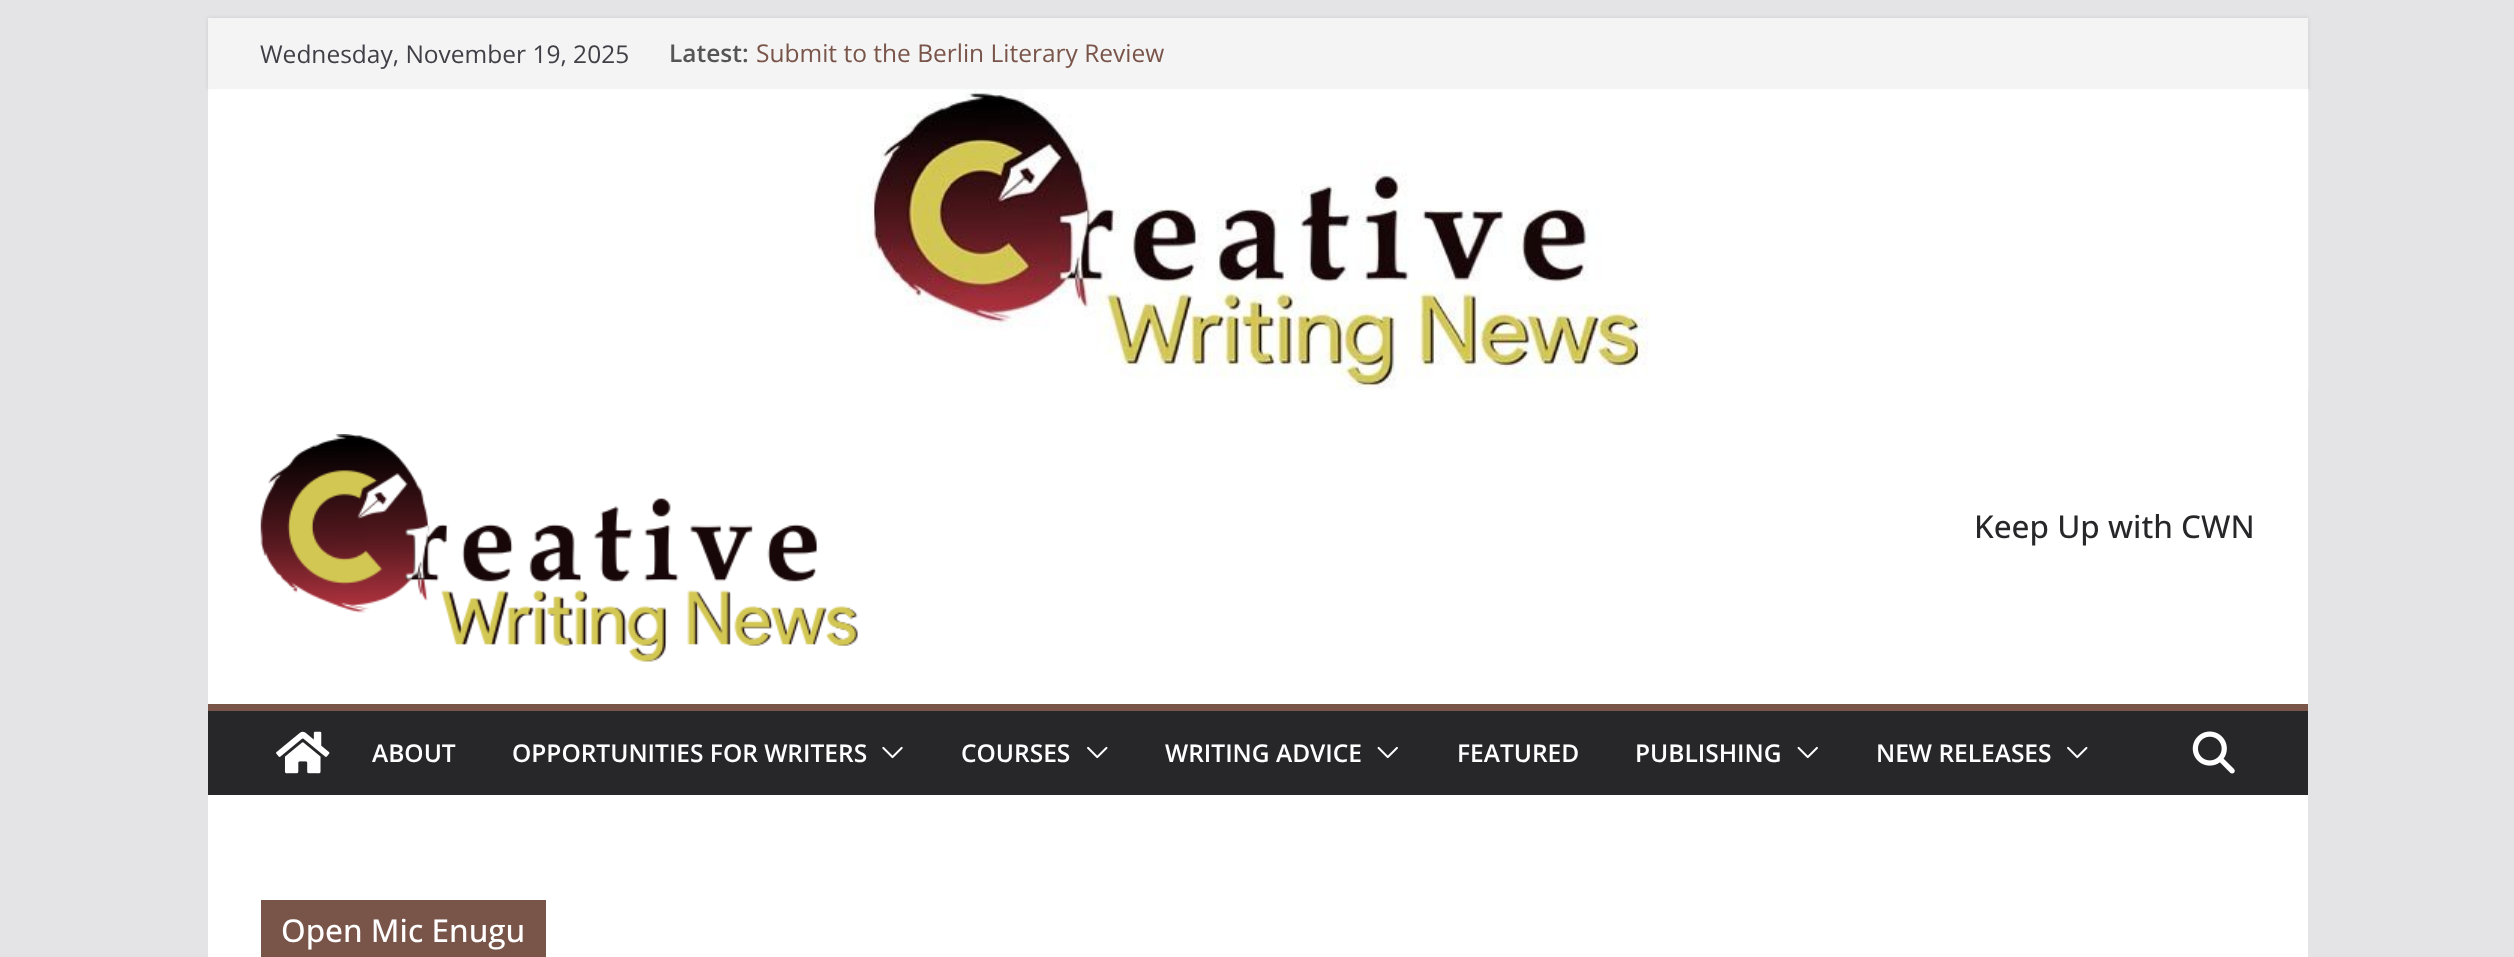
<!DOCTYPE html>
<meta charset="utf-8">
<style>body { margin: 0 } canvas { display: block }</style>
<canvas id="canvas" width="2514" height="957"></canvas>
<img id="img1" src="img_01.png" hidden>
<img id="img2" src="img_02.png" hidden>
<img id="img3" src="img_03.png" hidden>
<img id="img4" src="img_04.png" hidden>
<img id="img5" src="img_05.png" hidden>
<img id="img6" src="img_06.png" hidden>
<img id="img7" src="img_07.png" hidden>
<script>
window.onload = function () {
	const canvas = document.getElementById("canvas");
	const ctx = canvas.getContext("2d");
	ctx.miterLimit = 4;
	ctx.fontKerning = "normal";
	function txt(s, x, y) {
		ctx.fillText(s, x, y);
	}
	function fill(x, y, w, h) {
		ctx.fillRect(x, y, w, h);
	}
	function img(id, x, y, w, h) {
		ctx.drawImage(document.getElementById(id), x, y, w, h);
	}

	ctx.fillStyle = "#E4E4E7";
	fill(0, 0, 2514, 957);
	ctx.fillStyle = "#FFFFFF";
	fill(208, 89, 2100, 615);
	ctx.fillStyle = "rgba(0, 0, 0, 0.1)";
	ctx.filter = "blur(2px)";
	ctx.beginPath();
	ctx.rect(208, 18, 2100, 71);
	ctx.fill();
	ctx.filter = "none";
	ctx.fillStyle = "#F4F4F5";
	fill(208, 18, 2100, 71);
	img("img1", 209, 89, 2100, 301);
	img("img2", 260, 434, 598, 228);
	ctx.fillStyle = "#27272A";
	fill(208, 711, 2100, 84);
	ctx.fillStyle = "#795449";
	fill(208, 704, 2100, 7);
	img("img3", 276, 731, 54, 43);
	img("img4", 882, 746, 21, 13);
	img("img5", 1087, 746, 21, 13);
	img("img6", 1377, 746, 21, 13);
	img("img6", 1797, 746, 21, 13);
	img("img5", 2067, 746, 21, 13);
	img("img7", 2192, 731, 43, 43);
	ctx.fillStyle = "#FFFFFF";
	fill(208, 795, 2100, 162);
	ctx.fillStyle = "#795449";
	fill(261, 900, 285, 57);
	ctx.font = "24.5px Open Sans";
	ctx.fillStyle = "#3F3F46";
	txt("Wednesday, November 19, 2025", 260, 63);
	ctx.font = "600 24.5px Open Sans";
	ctx.fillStyle = "#555555";
	txt("Latest:", 669, 62);
	ctx.font = "24.5px Open Sans";
	ctx.fillStyle = "#795449";
	txt("Submit to the Berlin Literary Review", 756, 62);
	ctx.font = "500 31.5px Open Sans";
	ctx.fillStyle = "#27272A";
	txt("Keep Up with CWN", 1974, 538);
	ctx.font = "600 24.5px Open Sans";
	ctx.fillStyle = "#FFFFFF";
	txt("ABOUT", 372, 762);
	txt("OPPORTUNITIES FOR WRITERS", 512, 762);
	txt("COURSES", 961, 762);
	txt("WRITING ADVICE", 1165, 762);
	txt("FEATURED", 1457, 762);
	txt("PUBLISHING", 1635, 762);
	txt("NEW RELEASES", 1876, 762);
	ctx.font = "500 31.5px Open Sans";
	txt("Open Mic Enugu", 281, 942);
};
</script>
